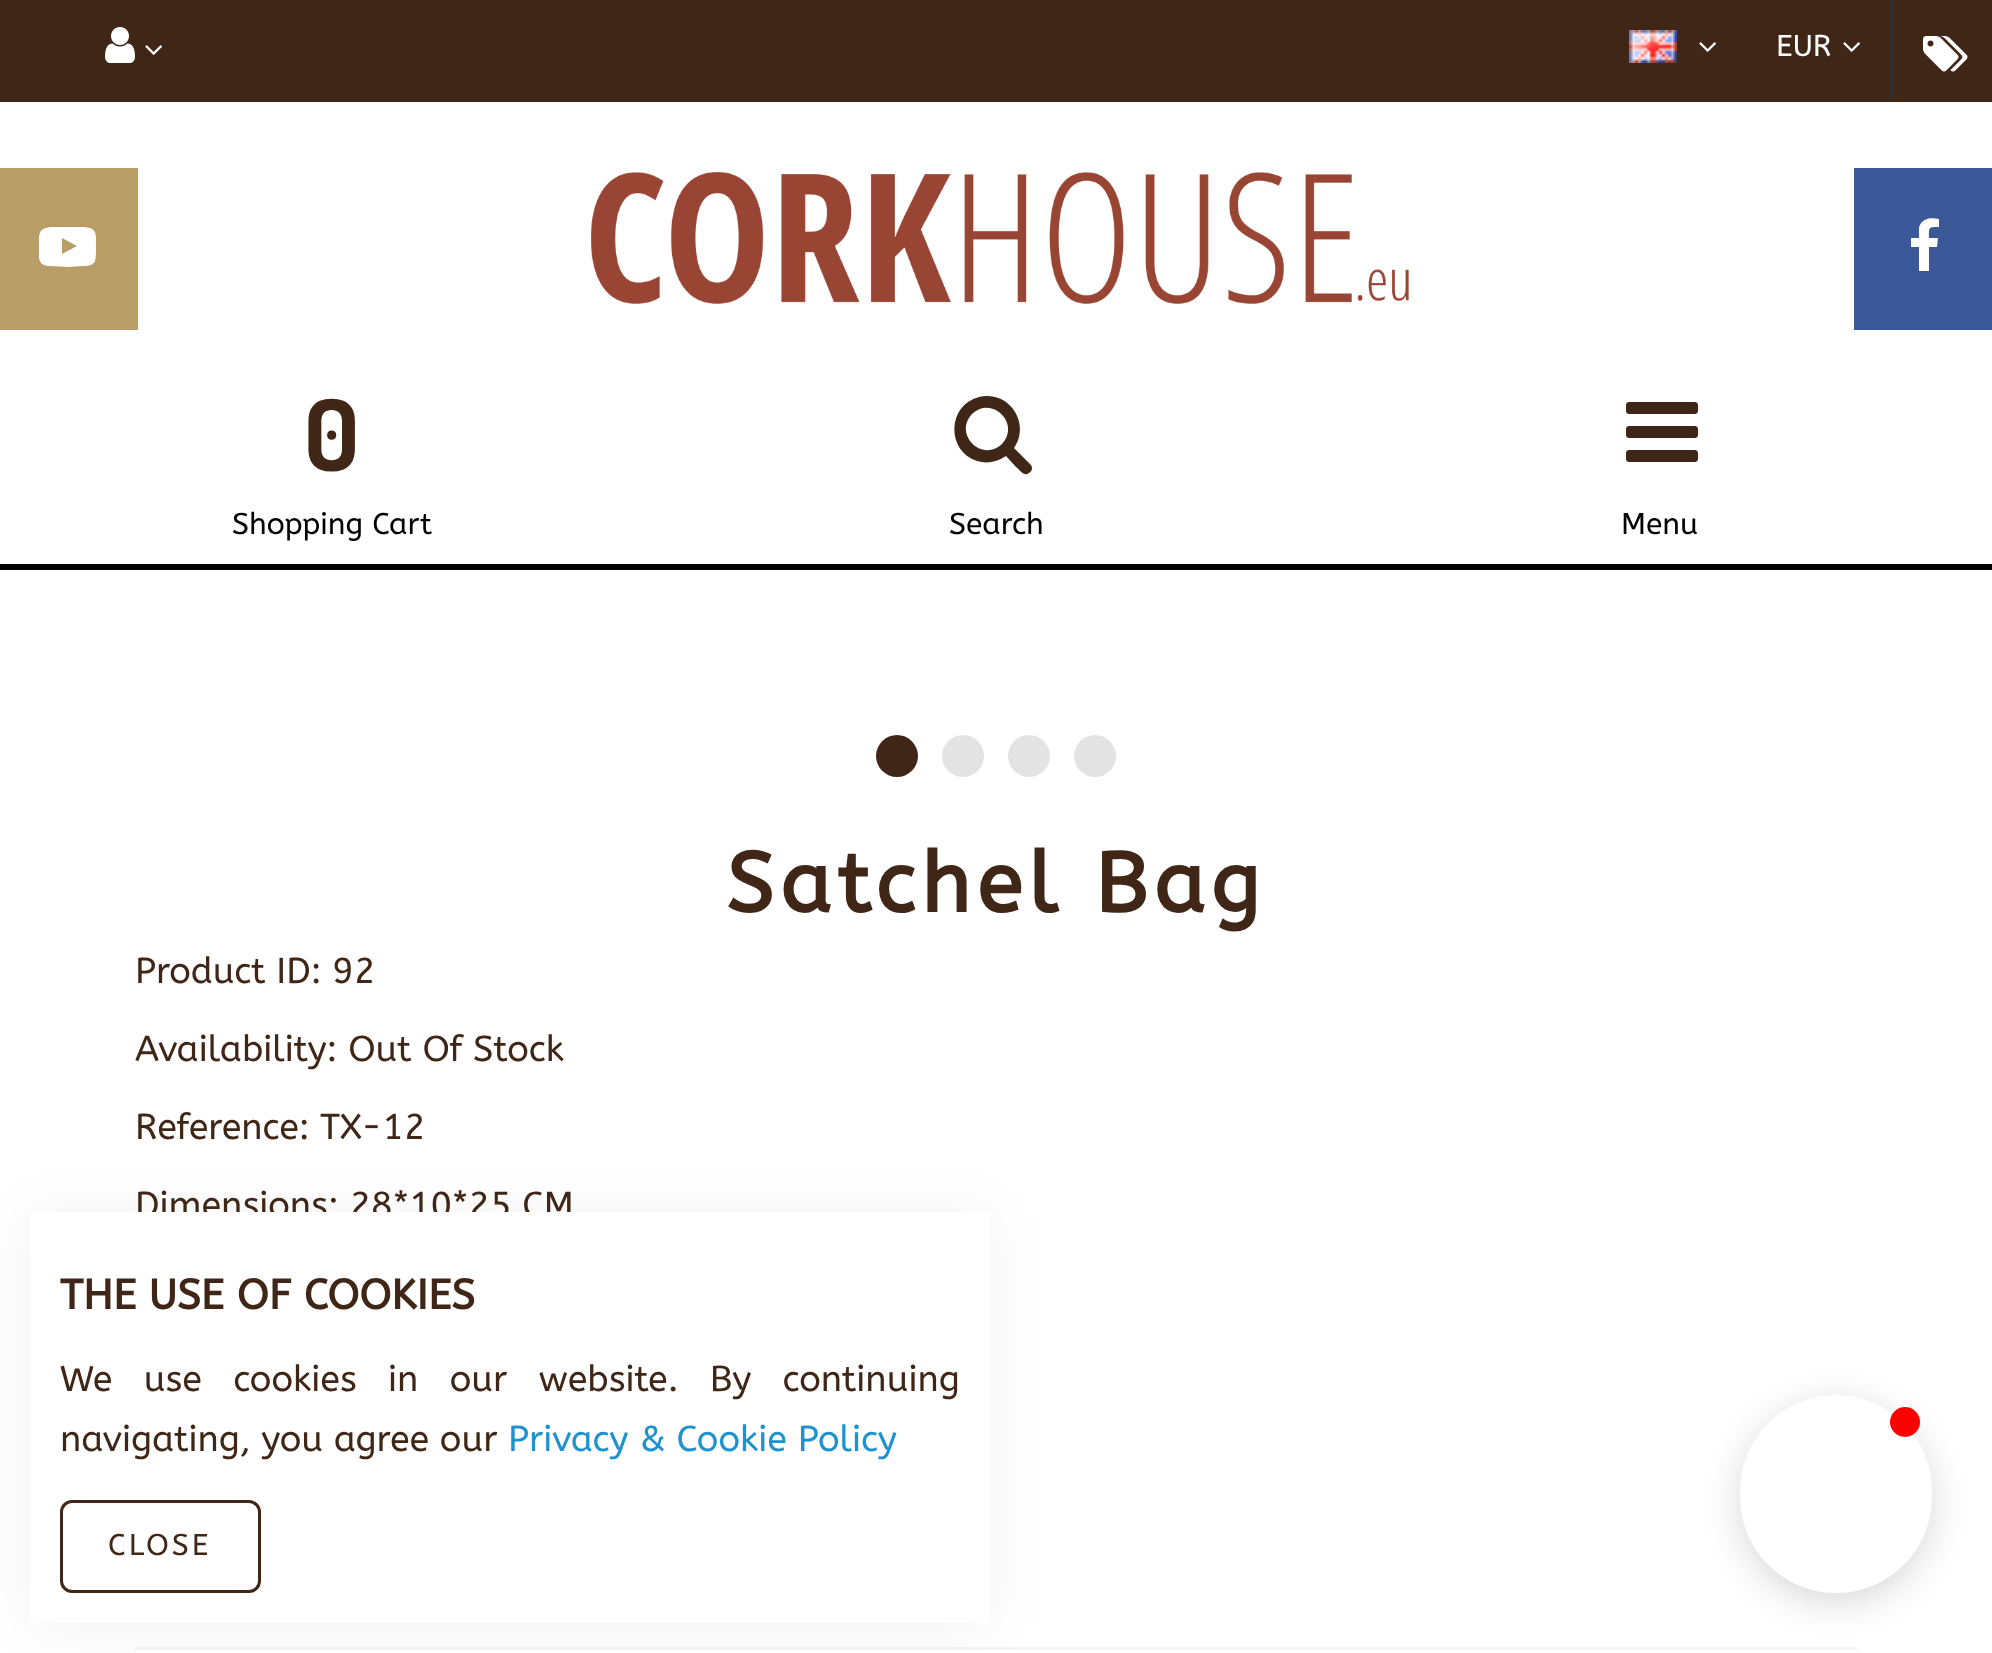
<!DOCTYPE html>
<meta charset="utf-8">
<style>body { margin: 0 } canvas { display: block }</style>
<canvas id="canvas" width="1992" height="1653"></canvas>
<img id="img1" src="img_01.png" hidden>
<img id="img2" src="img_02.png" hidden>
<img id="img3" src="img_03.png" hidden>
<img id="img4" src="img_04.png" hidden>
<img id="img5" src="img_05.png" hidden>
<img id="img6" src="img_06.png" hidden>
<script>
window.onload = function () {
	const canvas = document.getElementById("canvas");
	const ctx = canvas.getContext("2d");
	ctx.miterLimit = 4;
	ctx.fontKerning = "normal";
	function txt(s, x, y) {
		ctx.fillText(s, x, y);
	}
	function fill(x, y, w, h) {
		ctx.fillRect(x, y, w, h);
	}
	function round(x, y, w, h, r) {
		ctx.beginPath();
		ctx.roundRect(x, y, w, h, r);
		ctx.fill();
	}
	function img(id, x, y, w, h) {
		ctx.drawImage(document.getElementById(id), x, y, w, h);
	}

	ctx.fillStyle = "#FFFFFF";
	fill(0, 0, 1992, 1653);
	ctx.fillStyle = "#402616";
	fill(0, 0, 1992, 102);
	img("img1", 105, 27, 30, 36);
	img("img2", 145, 45, 17, 10);
	img("img3", 1629, 30, 48, 33);
	img("img2", 1699, 42, 17, 10);
	img("img2", 1843, 42, 17, 10);
	img("img4", 591, 172, 818, 132);
	ctx.beginPath();
	ctx.moveTo(1002, 444);
	ctx.bezierCurveTo(1021, 424, 992, 395, 972, 414);
	ctx.bezierCurveTo(953, 434, 982, 463, 1002, 444);
	ctx.closePath();
	ctx.moveTo(1032, 468);
	ctx.bezierCurveTo(1032, 470, 1031, 472, 1029, 473);
	ctx.bezierCurveTo(1024, 477, 1020, 470, 1016, 467);
	ctx.lineTo(1006, 456);
	ctx.bezierCurveTo(997, 462, 987, 464, 977, 461);
	ctx.bezierCurveTo(946, 451, 947, 405, 979, 397);
	ctx.bezierCurveTo(986, 395, 994, 396, 1001, 399);
	ctx.bezierCurveTo(1019, 408, 1026, 431, 1014, 448);
	ctx.lineTo(1030, 464);
	ctx.bezierCurveTo(1031, 465, 1032, 466, 1032, 468);
	ctx.closePath();
	ctx.fill();
	ctx.fillStyle = "#000000";
	fill(0, 564, 1992, 6);
	img("img5", 1626, 402, 72, 60);
	ctx.fillStyle = "#402616";
	ctx.beginPath();
	ctx.arc(897, 756, 21, 0, Math.PI * 2);
	ctx.fill();
	ctx.fillStyle = "#E3E3E3";
	ctx.beginPath();
	ctx.arc(963, 756, 21, 0, Math.PI * 2);
	ctx.fill();
	ctx.beginPath();
	ctx.arc(1029, 756, 21, 0, Math.PI * 2);
	ctx.fill();
	ctx.beginPath();
	ctx.arc(1095, 756, 21, 0, Math.PI * 2);
	ctx.fill();
	ctx.fillStyle = "#F5F5F5";
	fill(135, 1647, 1722, 3);
	ctx.fillStyle = "rgba(0, 0, 0, 0.05)";
	ctx.filter = "blur(30px)";
	ctx.beginPath();
	ctx.rect(30, 1215, 960, 411);
	ctx.fill();
	ctx.filter = "none";
	ctx.fillStyle = "#2E2E2E";
	fill(1890, 0, 3, 99);
	img("img6", 1923, 36, 45, 36);
	ctx.fillStyle = "#B89D67";
	fill(0, 168, 138, 162);
	ctx.fillStyle = "#FFFFFF";
	ctx.beginPath();
	ctx.moveTo(62, 254);
	ctx.lineTo(77, 246);
	ctx.lineTo(62, 238);
	ctx.closePath();
	ctx.moveTo(68, 227);
	ctx.lineTo(84, 227);
	ctx.bezierCurveTo(98, 228, 96, 235, 96, 247);
	ctx.bezierCurveTo(96, 262, 96, 266, 83, 266);
	ctx.lineTo(68, 267);
	ctx.lineTo(51, 266);
	ctx.bezierCurveTo(37, 266, 39, 258, 39, 246);
	ctx.bezierCurveTo(39, 232, 39, 228, 52, 227);
	ctx.closePath();
	ctx.fill();
	ctx.fillStyle = "#3B5998";
	fill(1854, 168, 138, 162);
	ctx.fillStyle = "#FFFFFF";
	ctx.beginPath();
	ctx.moveTo(1939, 219);
	ctx.lineTo(1939, 227);
	ctx.bezierCurveTo(1928, 227, 1929, 227, 1929, 238);
	ctx.lineTo(1938, 238);
	ctx.lineTo(1937, 247);
	ctx.lineTo(1929, 247);
	ctx.lineTo(1929, 271);
	ctx.lineTo(1919, 271);
	ctx.lineTo(1919, 247);
	ctx.lineTo(1911, 247);
	ctx.lineTo(1911, 238);
	ctx.lineTo(1919, 238);
	ctx.lineTo(1919, 228);
	ctx.bezierCurveTo(1921, 218, 1931, 217, 1939, 219);
	ctx.closePath();
	ctx.fill();
	ctx.fillStyle = "rgba(0, 0, 0, 0.15)";
	ctx.filter = "blur(18px)";
	ctx.beginPath();
	ctx.roundRect(1740, 1404, 192, 198, 96);
	ctx.fill();
	ctx.filter = "none";
	ctx.fillStyle = "#FFFFFF";
	round(1740, 1395, 192, 198, 96);
	ctx.fillStyle = "#FF0000";
	ctx.beginPath();
	ctx.arc(1905, 1422, 15, 0, Math.PI * 2);
	ctx.fill();
	ctx.font = "30px ABeeZee";
	ctx.fillStyle = "#FFFFFF";
	txt("EUR", 1776, 56);
	ctx.font = "bold 99px Dosis";
	ctx.fillStyle = "#402616";
	txt("0", 304, 471);
	ctx.font = "30px ABeeZee";
	ctx.fillStyle = "#000000";
	txt("Shopping Cart", 232, 534);
	txt("Search", 949, 534);
	txt("Menu", 1621, 534);
	ctx.letterSpacing = "6px";
	ctx.font = "bold 84px ABeeZee";
	ctx.fillStyle = "#402616";
	txt("Satchel Bag", 726, 912);
	ctx.letterSpacing = "0px";
	ctx.font = "36px ABeeZee";
	txt("Product ID: 92", 135, 983);
	txt("Availability: Out Of Stock", 135, 1061);
	txt("Reference: TX-12", 135, 1139);
	txt("Dimensions: 28*10*25 CM", 135, 1217);
	ctx.fillStyle = "#FFFFFF";
	fill(30, 1212, 960, 411);
	ctx.font = "bold 42px ABeeZee";
	ctx.fillStyle = "#402616";
	txt("THE USE OF COOKIES", 60, 1309);
	ctx.wordSpacing = "20.5px";
	ctx.font = "36px ABeeZee";
	txt("We use cookies in our website. By continuing", 60, 1391);
	ctx.wordSpacing = "0px";
	txt("navigating, you agree our", 60, 1451);
	ctx.fillStyle = "#1E91CF";
	txt("Privacy & Cookie Policy", 508, 1451);
	ctx.beginPath();
	ctx.roundRect(61.5, 1501.5, 198, 90, 10.5);
	ctx.strokeStyle = "#402616";
	ctx.lineWidth = 3;
	ctx.stroke();
	ctx.letterSpacing = "3px";
	ctx.font = "30px ABeeZee";
	ctx.fillStyle = "#402616";
	txt("CLOSE", 108, 1555);
};
</script>
